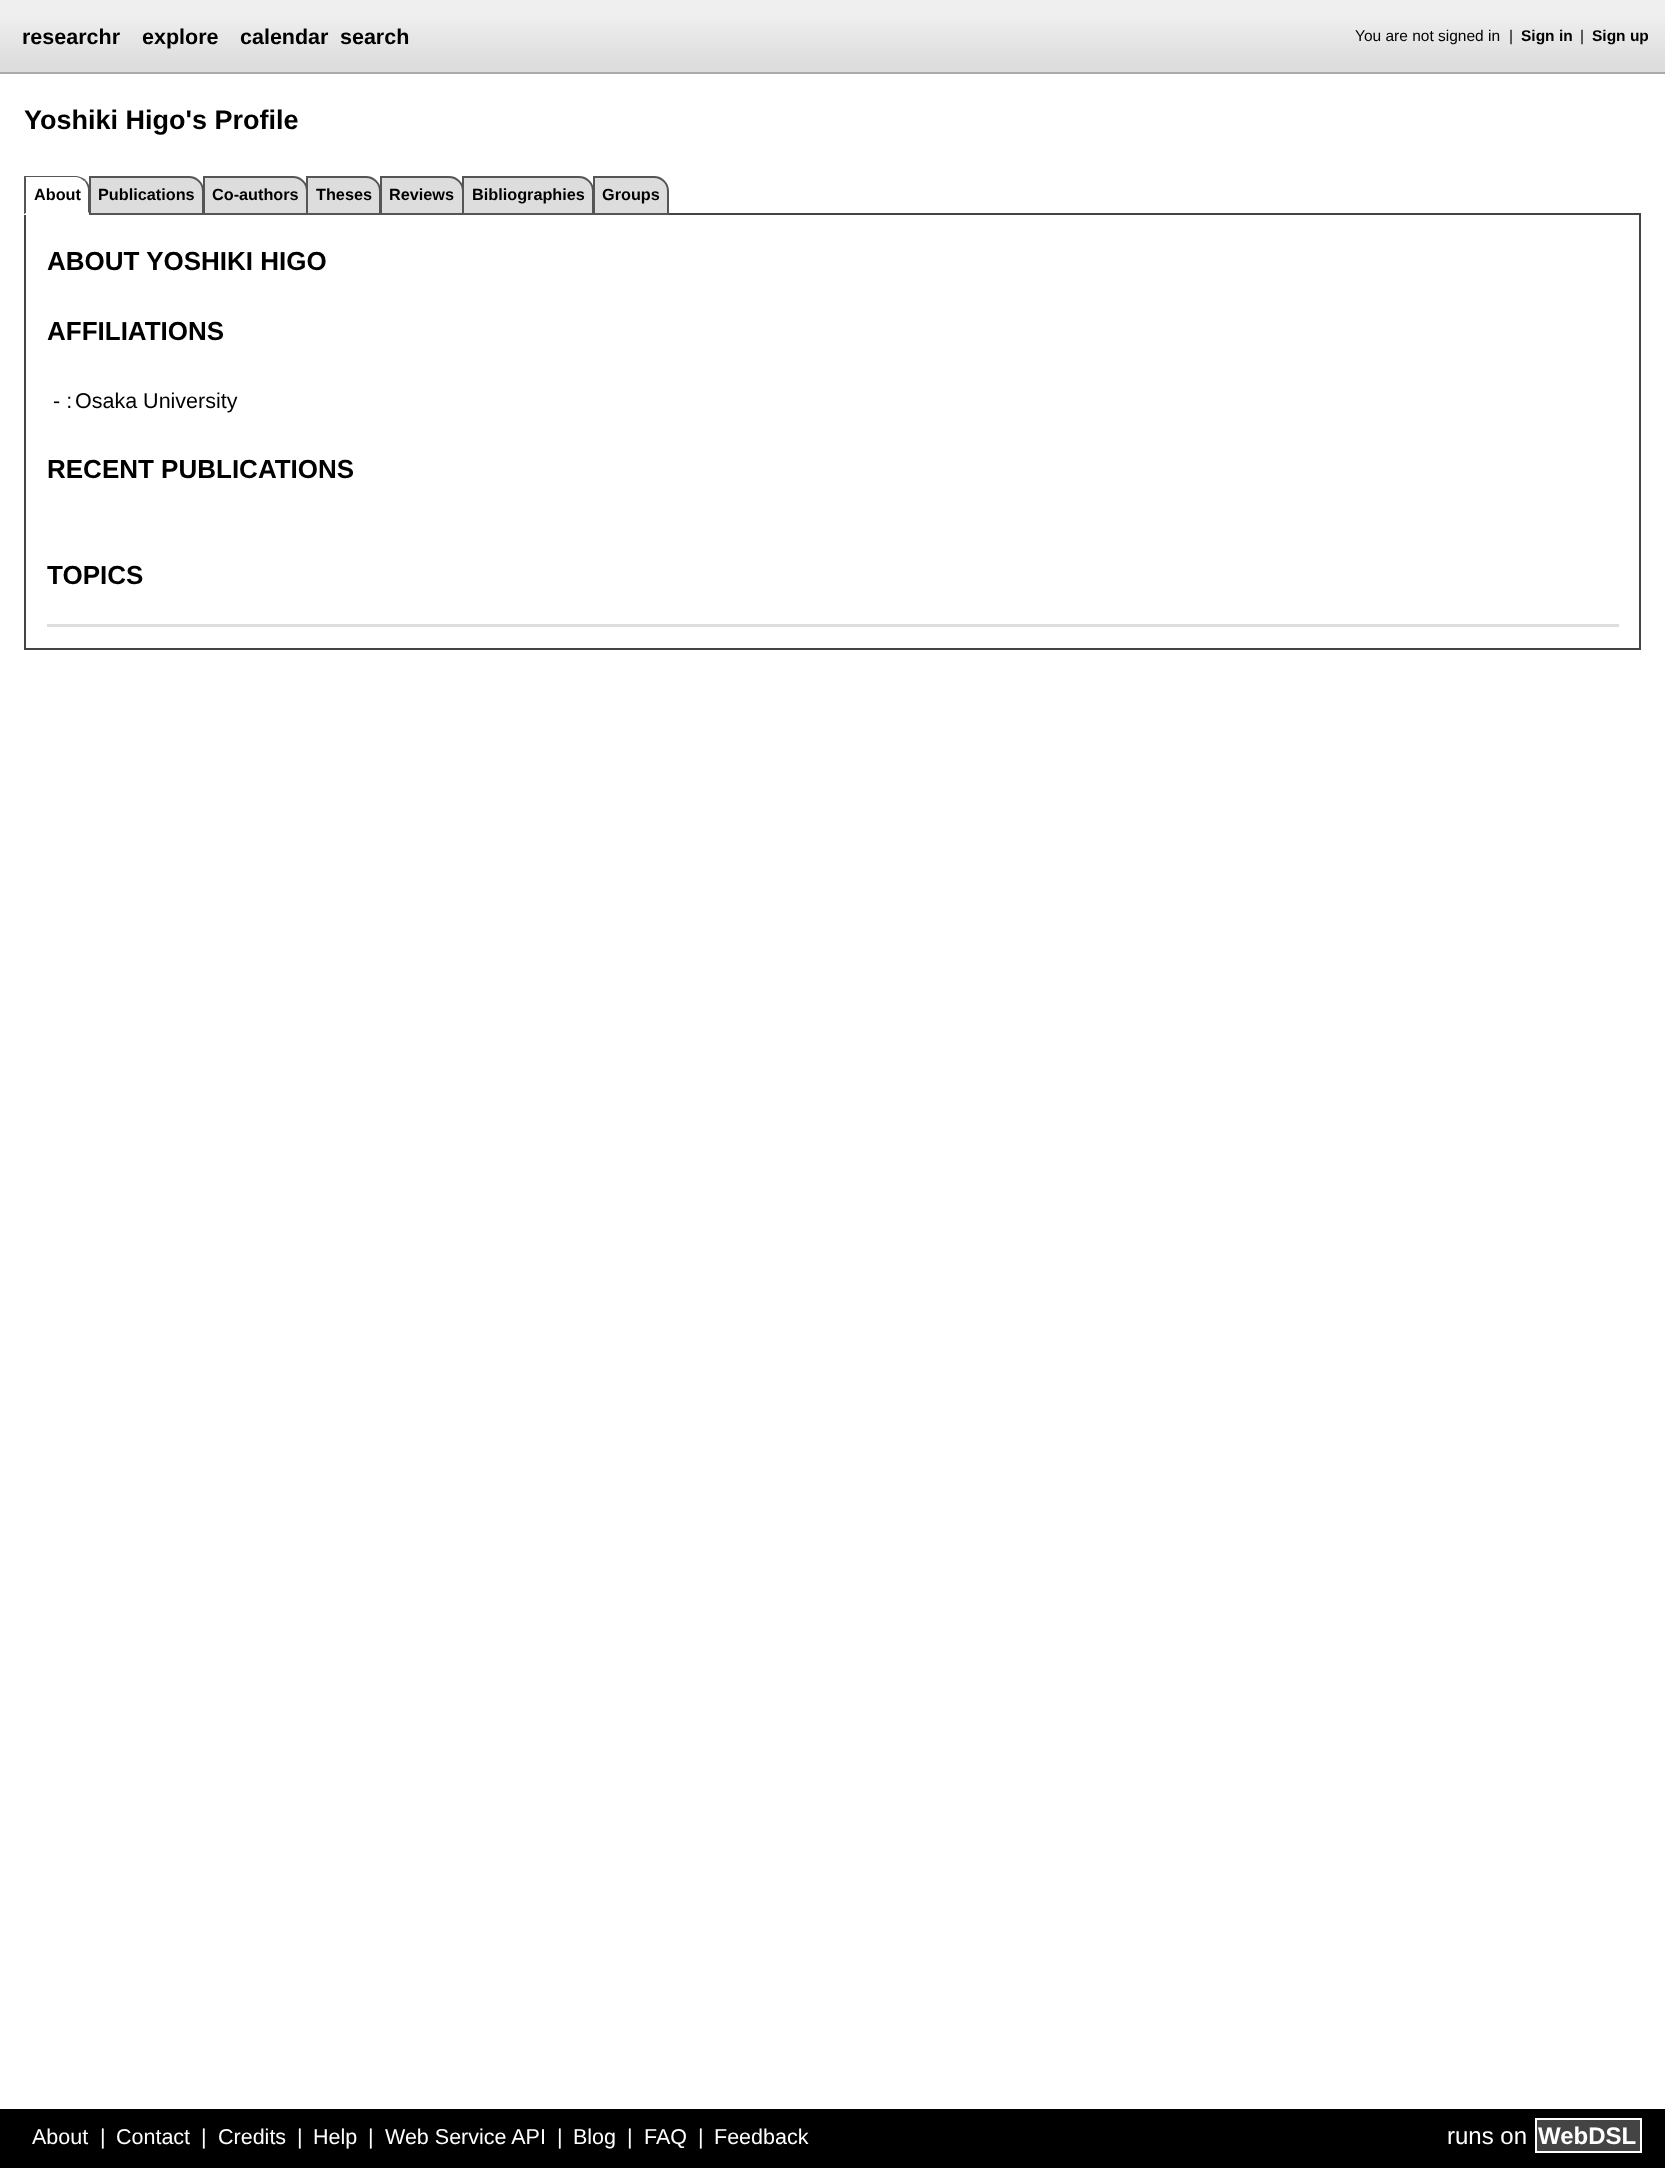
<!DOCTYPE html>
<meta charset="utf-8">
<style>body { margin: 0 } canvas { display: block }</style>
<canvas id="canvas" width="1665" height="2168"></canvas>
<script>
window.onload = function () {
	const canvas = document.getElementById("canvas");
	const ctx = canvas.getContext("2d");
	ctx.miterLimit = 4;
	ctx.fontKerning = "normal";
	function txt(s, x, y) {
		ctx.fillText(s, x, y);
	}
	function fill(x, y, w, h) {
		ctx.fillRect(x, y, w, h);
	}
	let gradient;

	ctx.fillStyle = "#FFFFFF";
	fill(0, 0, 1665, 2168);
	gradient = ctx.createLinearGradient(0, 72, 0, 0);
	gradient.addColorStop(0.1, "#DDDDDD");
	gradient.addColorStop(0.8, "#EFEFEF");
	ctx.fillStyle = gradient;
	fill(0, 0, 1665, 72);
	ctx.fillStyle = "#AAAAAA";
	fill(0, 72, 1665, 2);
	ctx.strokeStyle = "#444444";
	ctx.lineWidth = 2;
	ctx.strokeRect(25, 214, 1615, 435);
	ctx.fillStyle = "#FFFFFF";
	ctx.beginPath();
	ctx.roundRect(24, 176, 66, 39, [0, 15, 0, 0]);
	ctx.fill();
	ctx.fillStyle = "#555555";
	ctx.beginPath();
	ctx.moveTo(26, 177);
	ctx.lineTo(75, 177);
	ctx.bezierCurveTo(79, 177, 82, 179, 84, 181);
	ctx.lineTo(86, 180);
	ctx.bezierCurveTo(83, 178, 79, 176, 75, 176);
	ctx.lineTo(24, 176);
	ctx.lineTo(26, 178);
	ctx.closePath();
	ctx.fill();
	ctx.beginPath();
	ctx.moveTo(85.5, 180);
	ctx.bezierCurveTo(88, 182.5, 90, 186, 90, 190);
	ctx.lineTo(90, 214);
	ctx.lineTo(89.5, 214);
	ctx.lineTo(88, 212.5);
	ctx.lineTo(88, 190);
	ctx.bezierCurveTo(88, 186.5, 86.5, 183.5, 84.5, 181);
	ctx.closePath();
	ctx.fill();
	ctx.fillStyle = "#FFFFFF";
	ctx.beginPath();
	ctx.moveTo(90, 214);
	ctx.lineTo(24, 214);
	ctx.lineTo(26, 212);
	ctx.lineTo(26, 213);
	ctx.lineTo(88, 213);
	ctx.lineTo(88, 212);
	ctx.closePath();
	ctx.fill();
	ctx.fillStyle = "#555555";
	ctx.beginPath();
	ctx.moveTo(24, 176);
	ctx.lineTo(24.5, 176);
	ctx.lineTo(26, 177.5);
	ctx.lineTo(26, 212.5);
	ctx.lineTo(24.5, 214);
	ctx.lineTo(24, 214);
	ctx.closePath();
	ctx.fill();
	ctx.fillStyle = "#DDDDDD";
	ctx.beginPath();
	ctx.roundRect(90, 177, 113, 37, [0, 14, 0, 0]);
	ctx.fill();
	ctx.strokeStyle = "#555555";
	ctx.stroke();
	ctx.beginPath();
	ctx.roundRect(204, 177, 103, 37, [0, 14, 0, 0]);
	ctx.fill();
	ctx.stroke();
	ctx.beginPath();
	ctx.roundRect(307, 177, 73, 37, [0, 14, 0, 0]);
	ctx.fill();
	ctx.stroke();
	ctx.beginPath();
	ctx.roundRect(381, 177, 82, 37, [0, 14, 0, 0]);
	ctx.fill();
	ctx.stroke();
	ctx.beginPath();
	ctx.roundRect(463, 177, 130, 37, [0, 14, 0, 0]);
	ctx.fill();
	ctx.stroke();
	ctx.beginPath();
	ctx.roundRect(594, 177, 74, 37, [0, 14, 0, 0]);
	ctx.fill();
	ctx.stroke();
	fill(47, 624, 1572, 3);
	ctx.fillStyle = "#000000";
	fill(0, 2109, 1665, 59);
	ctx.fillStyle = "#444444";
	fill(1537, 2120, 103, 31);
	ctx.fillStyle = "#FFFFFF";
	fill(1535, 2118, 106, 2);
	fill(1535, 2151, 54, 2);
	fill(1535, 2118, 2, 35);
	fill(1640, 2118, 2, 35);
	fill(1589, 2151, 52, 2);
	ctx.font = "bold 21.5px Liberation Sans";
	ctx.fillStyle = "#000000";
	txt("researchr", 22, 44);
	txt("explore", 142, 44);
	txt("calendar", 240, 44);
	txt("search", 340, 44);
	ctx.font = "15.5px Liberation Sans";
	txt("You are not signed in", 1355, 41);
	txt("|", 1509, 41);
	ctx.font = "bold 15.5px Liberation Sans";
	txt("Sign in", 1521, 41);
	ctx.font = "15.5px Liberation Sans";
	txt("|", 1580, 41);
	ctx.font = "bold 15.5px Liberation Sans";
	txt("Sign up", 1592, 41);
	ctx.font = "bold 27px Liberation Sans";
	txt("Yoshiki Higo's Profile", 24, 129);
	ctx.font = "bold 16.25px Liberation Sans";
	txt("About", 34, 200);
	txt("Publications", 98, 200);
	txt("Co-authors", 212, 200);
	txt("Theses", 316, 200);
	txt("Reviews", 389, 200);
	txt("Bibliographies", 472, 200);
	txt("Groups", 602, 200);
	ctx.font = "bold 26px Liberation Sans";
	txt("ABOUT YOSHIKI HIGO", 47, 270);
	txt("AFFILIATIONS", 47, 340);
	ctx.font = "21.5px Liberation Sans";
	txt("- :", 53, 408);
	txt("Osaka University", 75, 408);
	ctx.font = "bold 26px Liberation Sans";
	txt("RECENT PUBLICATIONS", 47, 478);
	txt("TOPICS", 47, 584);
	ctx.font = "21.5px Liberation Sans";
	ctx.fillStyle = "#FFFFFF";
	txt("About", 32, 2144);
	txt("|", 100, 2144);
	txt("Contact", 116, 2144);
	txt("|", 201, 2144);
	txt("Credits", 218, 2144);
	txt("|", 297, 2144);
	txt("Help", 313, 2144);
	txt("|", 368, 2144);
	txt("Web Service API", 385, 2144);
	txt("|", 557, 2144);
	txt("Blog", 573, 2144);
	txt("|", 627, 2144);
	txt("FAQ", 644, 2144);
	txt("|", 698, 2144);
	txt("Feedback", 714, 2144);
	ctx.font = "24px Liberation Sans";
	txt("runs on", 1447, 2144);
	ctx.font = "bold 24px Liberation Sans";
	txt("WebDSL", 1538, 2144);
};
</script>
